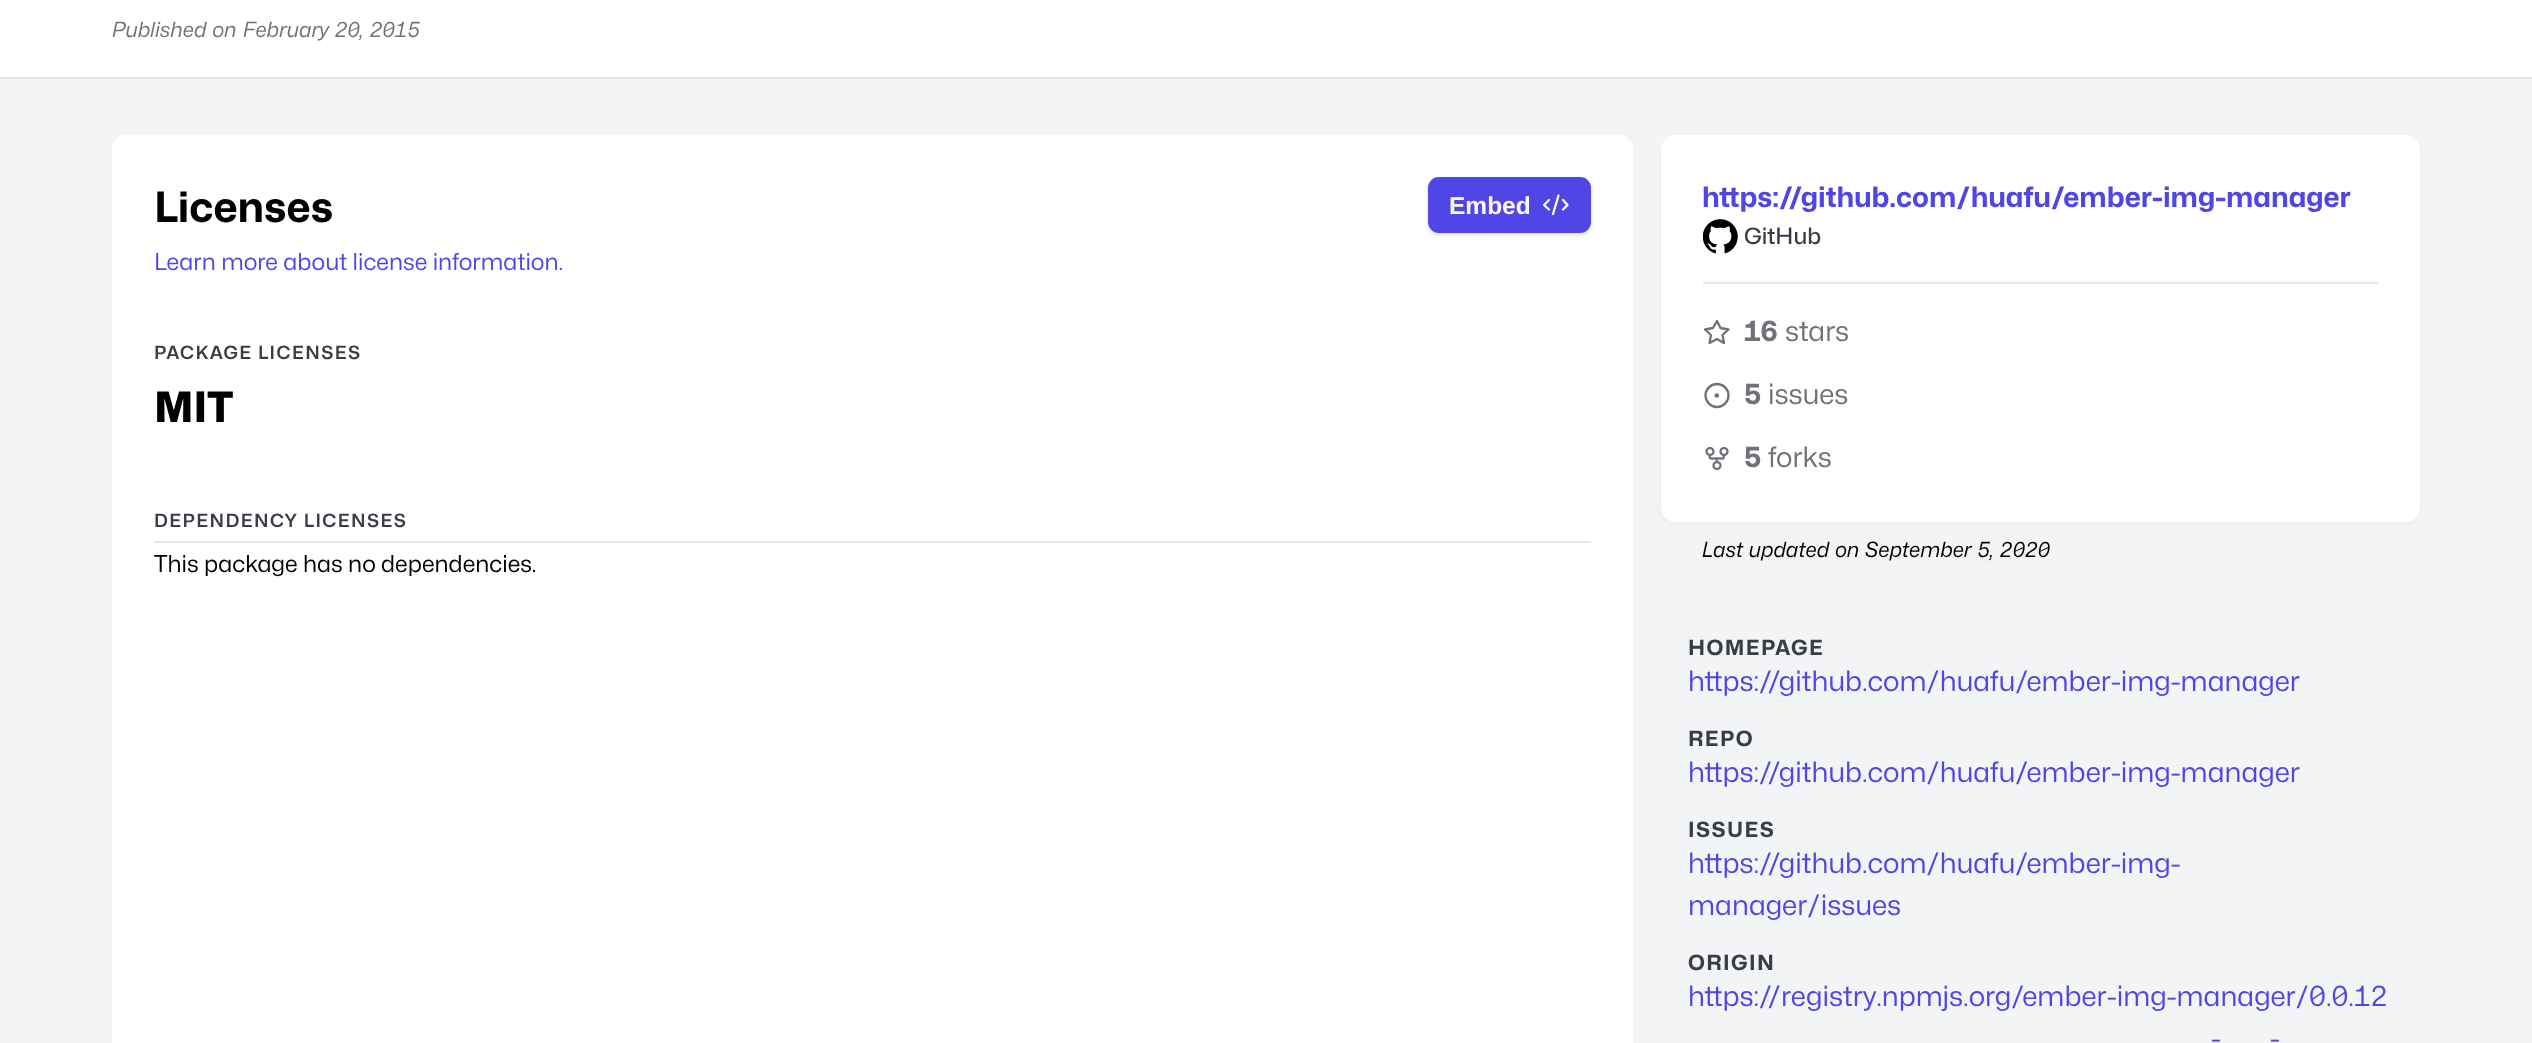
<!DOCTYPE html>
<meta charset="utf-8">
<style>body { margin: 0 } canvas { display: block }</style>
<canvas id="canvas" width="2532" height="1043"></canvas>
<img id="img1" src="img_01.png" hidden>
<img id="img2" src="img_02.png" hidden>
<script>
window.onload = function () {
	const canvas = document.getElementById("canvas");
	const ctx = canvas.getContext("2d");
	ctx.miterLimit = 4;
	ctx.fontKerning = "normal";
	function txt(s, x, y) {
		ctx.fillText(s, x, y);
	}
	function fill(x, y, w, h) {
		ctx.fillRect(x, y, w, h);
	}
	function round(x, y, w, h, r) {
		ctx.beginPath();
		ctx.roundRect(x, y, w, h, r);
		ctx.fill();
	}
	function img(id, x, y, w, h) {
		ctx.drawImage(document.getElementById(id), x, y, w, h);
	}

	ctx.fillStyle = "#F3F4F6";
	fill(0, 0, 2532, 1043);
	ctx.fillStyle = "#FFFFFF";
	fill(0, 0, 2532, 77);
	ctx.fillStyle = "#E5E7EB";
	fill(0, 77, 2532, 2);
	ctx.fillStyle = "#FFFFFF";
	round(112, 135, 1521, 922, 14);
	ctx.fillStyle = "rgba(0, 0, 0, 0.1)";
	ctx.filter = "blur(2px)";
	ctx.beginPath();
	ctx.roundRect(1430, 180, 159, 53, 9);
	ctx.fill();
	ctx.filter = "none";
	ctx.filter = "blur(2.5px)";
	ctx.beginPath();
	ctx.roundRect(1428, 179, 163, 56, 11);
	ctx.fill();
	ctx.filter = "none";
	ctx.fillStyle = "#4F46E5";
	round(1428, 177, 163, 56, 11);
	ctx.beginPath();
	ctx.moveTo(1563, 209.5);
	ctx.lineTo(1567.5, 205);
	ctx.lineTo(1563, 200);
	ctx.moveTo(1549, 200);
	ctx.lineTo(1544, 205);
	ctx.lineTo(1549, 209.5);
	ctx.moveTo(1558.5, 195.5);
	ctx.lineTo(1553, 214);
	ctx.strokeStyle = "#FAFAFA";
	ctx.lineWidth = 2.3;
	ctx.lineCap = "round";
	ctx.lineJoin = "round";
	ctx.stroke();
	ctx.fillStyle = "#E5E7EB";
	fill(154, 541, 1437, 2);
	ctx.fillStyle = "rgba(0, 0, 0, 0.05)";
	ctx.filter = "blur(2px)";
	ctx.beginPath();
	ctx.roundRect(1661, 137, 759, 386, 14);
	ctx.fill();
	ctx.filter = "none";
	ctx.fillStyle = "#FFFFFF";
	round(1661, 135, 759, 387, 14);
	ctx.fillStyle = "#E5E7EB";
	fill(1703, 282, 675, 2);
	img("img1", 1703, 219, 35, 35);
	ctx.beginPath();
	ctx.moveTo(1717, 321);
	ctx.lineTo(1720.5, 328);
	ctx.lineTo(1728.5, 329.5);
	ctx.lineTo(1722.5, 335);
	ctx.lineTo(1724, 343);
	ctx.lineTo(1717, 339);
	ctx.lineTo(1709.5, 343);
	ctx.lineTo(1711, 335);
	ctx.lineTo(1705, 329.5);
	ctx.lineTo(1713, 328);
	ctx.closePath();
	ctx.strokeStyle = "#71717A";
	ctx.stroke();
	ctx.beginPath();
	ctx.arc(1717, 395.5, 11.5, 0, Math.PI * 2);
	ctx.stroke();
	ctx.beginPath();
	ctx.arc(1716.8, 395.5, 1.2, 0, Math.PI * 2);
	ctx.stroke();
	img("img2", 1705, 446, 24, 25);
	ctx.wordSpacing = "1px";
	ctx.font = "italic 21px Mona Sans";
	ctx.fillStyle = "#71717A";
	txt("Published on", 112, 37);
	ctx.font = "italic 21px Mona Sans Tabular";
	txt("February 20, 2015", 243, 37);
	ctx.wordSpacing = "0px";
	ctx.font = "bold 42px Mona Sans";
	ctx.fillStyle = "#000000";
	txt("Licenses", 154, 222);
	ctx.font = "23.3px Mona Sans";
	ctx.fillStyle = "#4F46E5";
	txt("Learn more about license information.", 154, 270);
	ctx.font = "bold 24.5px Liberation Sans";
	ctx.fillStyle = "#FAFAFA";
	txt("Embed", 1449, 214);
	ctx.letterSpacing = "1.4px";
	ctx.font = "600 18.25px Mona Sans";
	ctx.fillStyle = "#393E46";
	txt("PACKAGE LICENSES", 154, 359);
	ctx.letterSpacing = "0px";
	ctx.font = "800 42px Mona Sans";
	ctx.fillStyle = "#000000";
	txt("MIT", 154, 422);
	ctx.letterSpacing = "1.4px";
	ctx.font = "600 18.25px Mona Sans";
	ctx.fillStyle = "#393E46";
	txt("DEPENDENCY LICENSES", 154, 527);
	ctx.letterSpacing = "0px";
	ctx.font = "23.3px Mona Sans";
	ctx.fillStyle = "#000000";
	txt("This package has no dependencies.", 154, 572);
	ctx.font = "bold 28px Mona Sans";
	ctx.fillStyle = "#4F46E5";
	txt("https://github.com/huafu/ember-img-manager", 1702, 207);
	ctx.font = "500 22.5px Mona Sans";
	ctx.fillStyle = "#393E46";
	txt("GitHub", 1744, 244);
	ctx.font = "bold 28px Mona Sans Tabular";
	ctx.fillStyle = "#71717A";
	txt("16", 1744, 341);
	ctx.font = "28px Mona Sans";
	txt("stars", 1785, 341);
	ctx.font = "bold 28px Mona Sans";
	txt("5", 1744, 404);
	ctx.font = "28px Mona Sans";
	txt("issues", 1768, 404);
	ctx.font = "bold 28px Mona Sans";
	txt("5", 1744, 467);
	ctx.font = "28px Mona Sans";
	txt("forks", 1768, 467);
	ctx.wordSpacing = "1px";
	ctx.font = "italic 21px Mona Sans";
	ctx.fillStyle = "#000000";
	txt("Last updated on", 1702, 557);
	ctx.font = "italic 21px Mona Sans Tabular";
	txt("September 5, 2020", 1865, 557);
	ctx.letterSpacing = "1.4px";
	ctx.wordSpacing = "0px";
	ctx.font = "bold 21px Mona Sans";
	ctx.fillStyle = "#393E46";
	txt("HOMEPAGE", 1688, 655);
	ctx.letterSpacing = "0px";
	ctx.font = "28px Mona Sans";
	ctx.fillStyle = "#4F46E5";
	txt("https://github.com/huafu/ember-img-manager", 1688, 691);
	ctx.letterSpacing = "1.4px";
	ctx.font = "bold 21px Mona Sans";
	ctx.fillStyle = "#393E46";
	txt("REPO", 1688, 746);
	ctx.letterSpacing = "0px";
	ctx.font = "28px Mona Sans";
	ctx.fillStyle = "#4F46E5";
	txt("https://github.com/huafu/ember-img-manager", 1688, 782);
	ctx.letterSpacing = "1.4px";
	ctx.font = "bold 21px Mona Sans";
	ctx.fillStyle = "#393E46";
	txt("ISSUES", 1688, 837);
	ctx.letterSpacing = "0px";
	ctx.font = "28px Mona Sans";
	ctx.fillStyle = "#4F46E5";
	txt("https://github.com/huafu/ember-img-", 1688, 873);
	txt("manager/issues", 1688, 915);
	ctx.letterSpacing = "1.4px";
	ctx.font = "bold 21px Mona Sans";
	ctx.fillStyle = "#393E46";
	txt("ORIGIN", 1688, 970);
	ctx.letterSpacing = "0px";
	ctx.font = "28px Mona Sans Tabular";
	ctx.fillStyle = "#4F46E5";
	txt("https://registry.npmjs.org/ember-img-manager/0.0.12", 1688, 1006);
	ctx.font = "28px Mona Sans";
	txt("-", 2211, 1048);
	txt("-", 2270, 1048);
};
</script>
